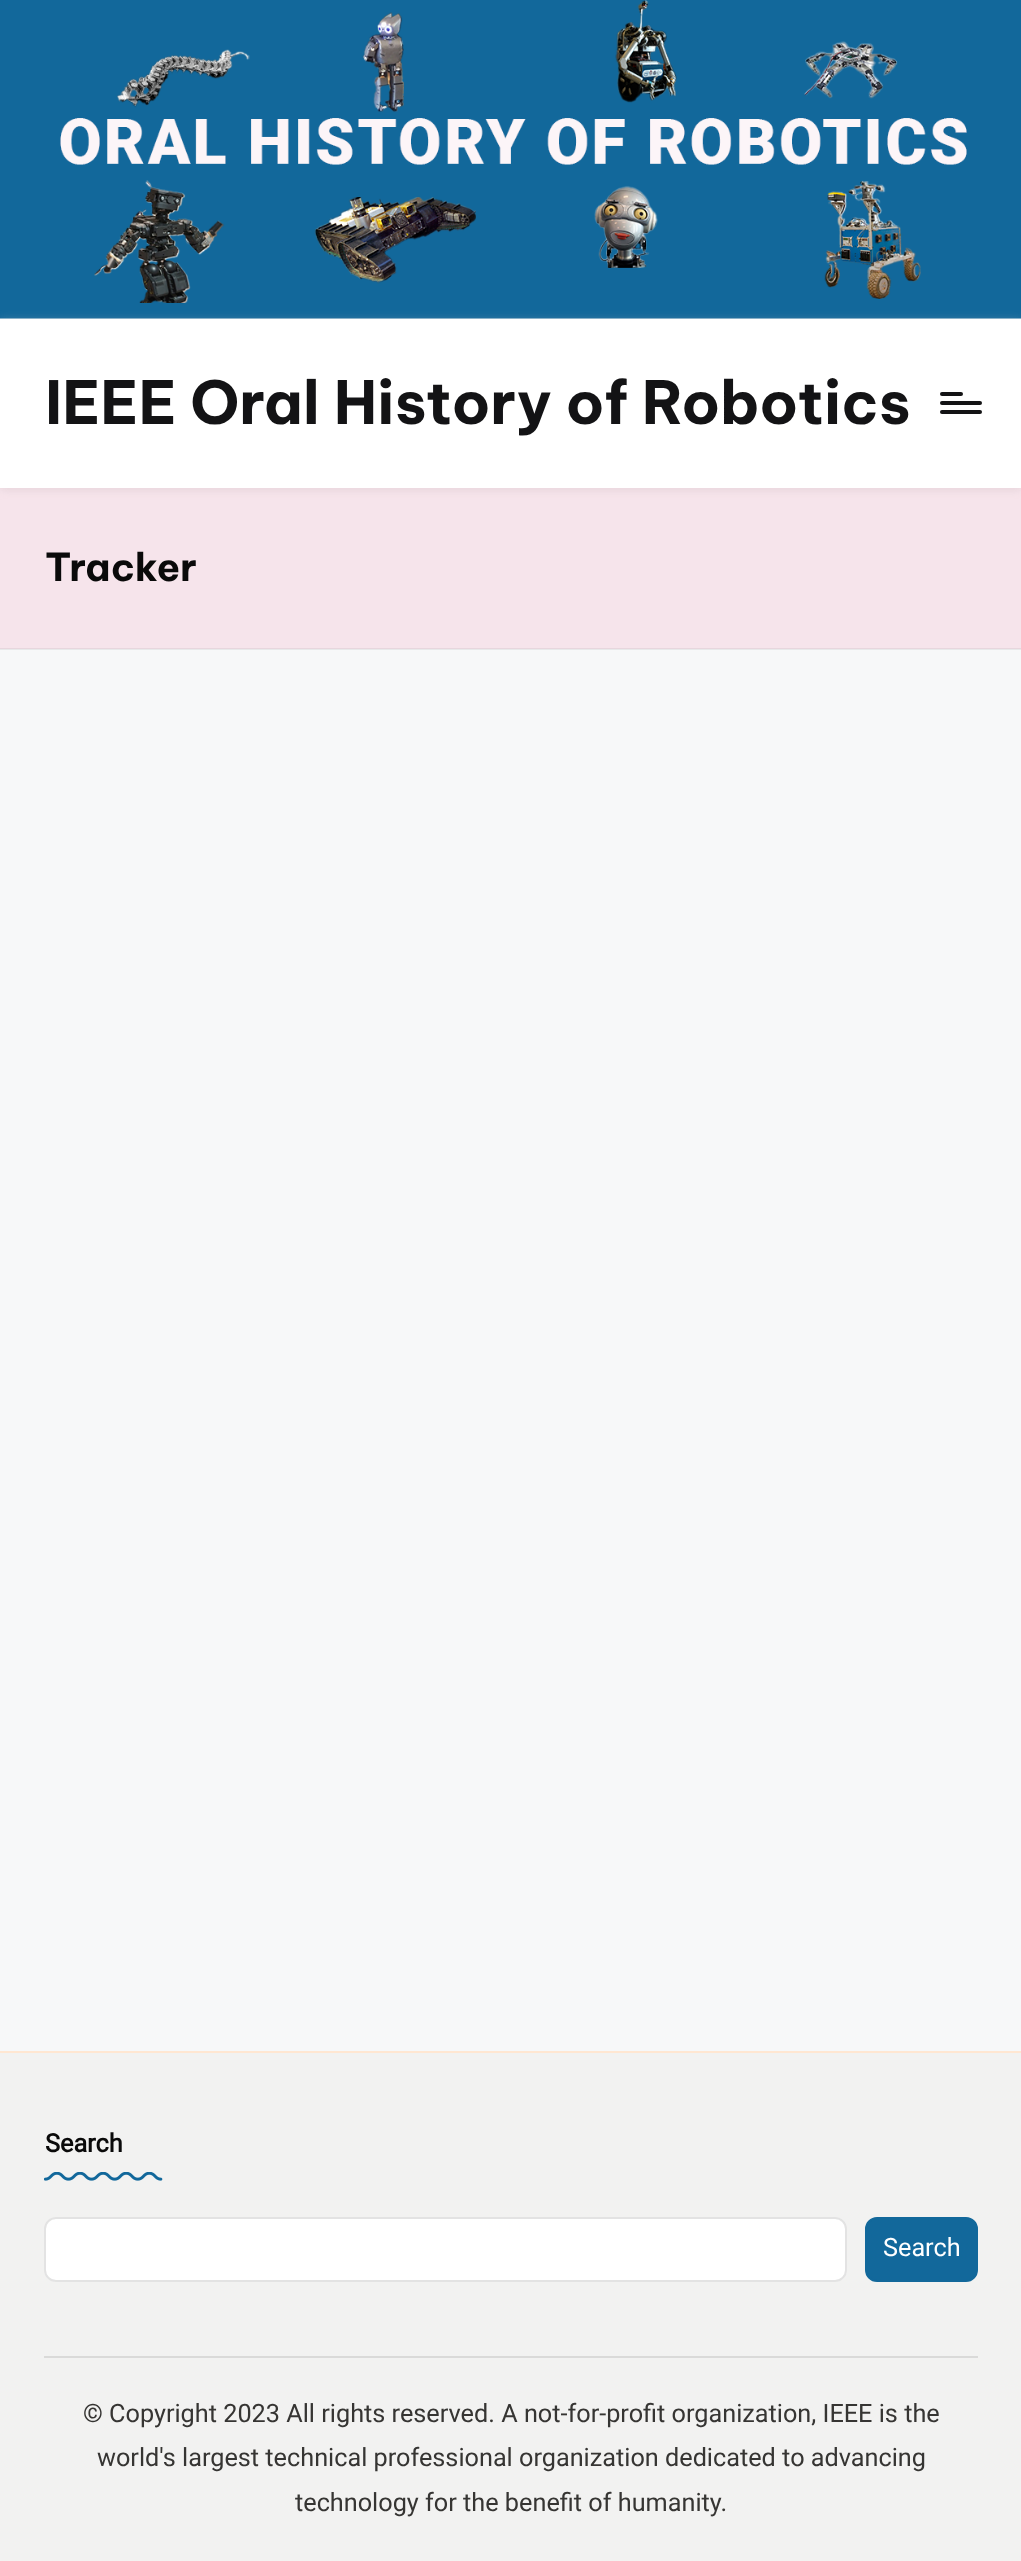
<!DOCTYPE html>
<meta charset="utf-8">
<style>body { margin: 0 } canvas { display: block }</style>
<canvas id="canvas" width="1021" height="2561"></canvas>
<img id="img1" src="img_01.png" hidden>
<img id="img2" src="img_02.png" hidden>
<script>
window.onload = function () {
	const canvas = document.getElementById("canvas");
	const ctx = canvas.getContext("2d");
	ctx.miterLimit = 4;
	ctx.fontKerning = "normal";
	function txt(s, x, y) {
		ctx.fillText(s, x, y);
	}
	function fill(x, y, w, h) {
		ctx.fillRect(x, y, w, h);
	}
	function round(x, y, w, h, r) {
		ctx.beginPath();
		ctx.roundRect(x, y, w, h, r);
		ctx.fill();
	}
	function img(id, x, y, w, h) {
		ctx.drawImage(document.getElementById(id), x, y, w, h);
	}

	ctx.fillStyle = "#F7F8F9";
	fill(0, 0, 1021, 2561);
	img("img1", 0, 0, 1021, 319);
	ctx.fillStyle = "rgba(190, 190, 190, 0.3)";
	ctx.filter = "blur(5px)";
	ctx.beginPath();
	ctx.rect(0, 320, 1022, 170);
	ctx.fill();
	ctx.filter = "none";
	ctx.fillStyle = "#FFFFFF";
	fill(0, 319, 1021, 169);
	ctx.fillStyle = "#131315";
	round(940, 401, 42, 4, 2);
	round(940, 392, 23, 4, 2);
	round(940, 410, 42, 4, 2);
	ctx.fillStyle = "rgba(244, 54, 118, 0.1)";
	fill(0, 488, 1021, 161);
	ctx.fillStyle = "rgba(0, 0, 0, 0.06)";
	fill(0, 648, 1021, 2);
	ctx.fillStyle = "#F2F2F1";
	fill(0, 2053, 1021, 508);
	ctx.fillStyle = "#FFE7D2";
	fill(0, 2051, 1021, 2);
	img("img2", 44, 2172, 119, 9);
	ctx.fillStyle = "#FFFFFF";
	round(44, 2217, 803, 65, 12);
	ctx.beginPath();
	ctx.roundRect(45, 2218, 801, 63, 11);
	ctx.strokeStyle = "rgba(185, 185, 185, 0.4)";
	ctx.lineWidth = 2;
	ctx.stroke();
	ctx.fillStyle = "#12689B";
	ctx.beginPath();
	ctx.roundRect(866, 2218, 111, 63, 11);
	ctx.fill();
	ctx.strokeStyle = "#12689B";
	ctx.stroke();
	ctx.fillStyle = "#DADAD9";
	fill(44, 2356, 934, 2);
	ctx.font = "bold 59.4px Be Vietnam Pro";
	ctx.fillStyle = "#131315";
	txt("IEEE Oral History of Robotics", 45, 424);
	ctx.font = "bold 38.5px Be Vietnam Pro";
	ctx.fillStyle = "#0A0A0A";
	txt("Tracker", 45, 581);
	ctx.font = "bold 25.25px Roboto";
	txt("Search", 45, 2152);
	ctx.font = "25.25px Roboto";
	ctx.fillStyle = "#FFFFFF";
	txt("Search", 883, 2256);
	ctx.fillStyle = "#363533";
	txt("© Copyright 2023 All rights reserved. A not-for-profit organization, IEEE is the", 83, 2422);
	txt("world's largest technical professional organization dedicated to advancing", 97, 2466);
	txt("technology for the benefit of humanity.", 295, 2511);
};
</script>
